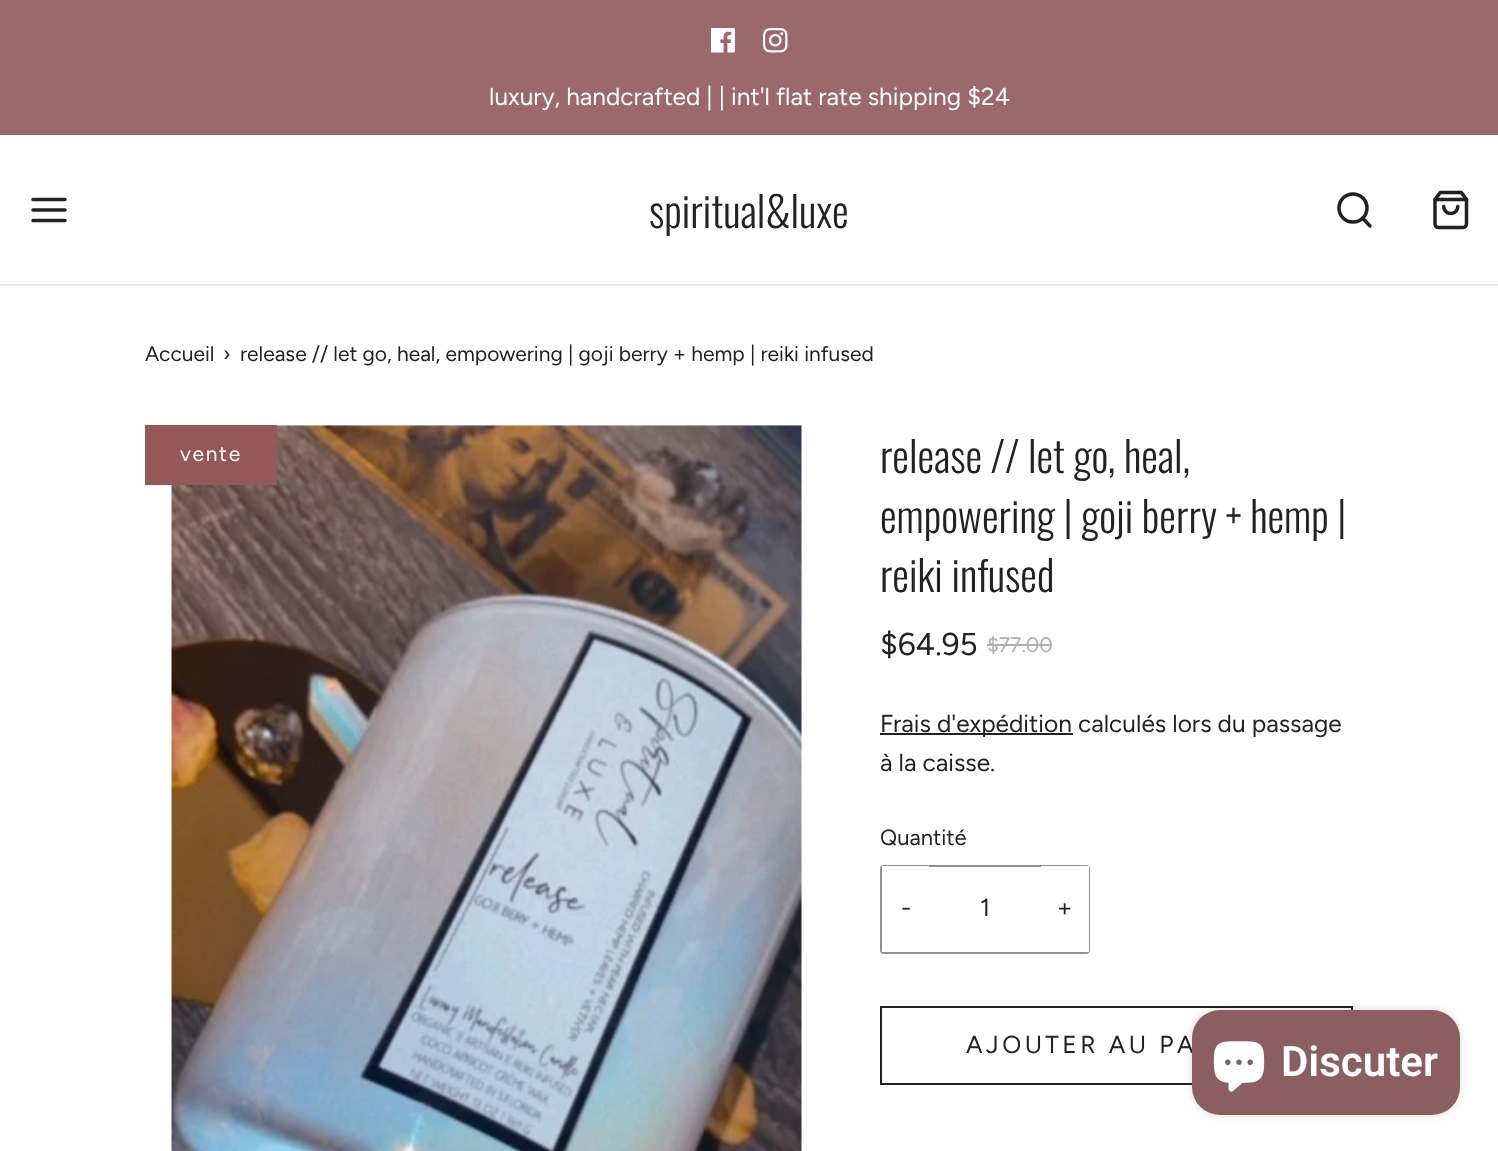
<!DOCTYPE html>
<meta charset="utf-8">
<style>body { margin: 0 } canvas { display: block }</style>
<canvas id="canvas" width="1498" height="1151"></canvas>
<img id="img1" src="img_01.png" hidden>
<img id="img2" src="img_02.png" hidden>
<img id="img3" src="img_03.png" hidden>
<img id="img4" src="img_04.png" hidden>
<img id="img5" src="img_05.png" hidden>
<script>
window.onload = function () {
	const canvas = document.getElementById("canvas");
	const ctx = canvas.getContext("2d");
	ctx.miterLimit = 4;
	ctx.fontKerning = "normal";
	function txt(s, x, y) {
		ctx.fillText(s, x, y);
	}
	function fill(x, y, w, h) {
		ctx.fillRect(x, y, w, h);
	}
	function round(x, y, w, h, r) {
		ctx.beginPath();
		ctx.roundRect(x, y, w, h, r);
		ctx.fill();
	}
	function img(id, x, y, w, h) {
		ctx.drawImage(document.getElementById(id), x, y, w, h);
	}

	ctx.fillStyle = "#FFFFFF";
	fill(0, 0, 1498, 1151);
	ctx.fillStyle = "#9B6969";
	fill(0, 0, 1498, 135);
	img("img1", 711, 28, 24, 25);
	img("img2", 763, 28, 25, 25);
	ctx.fillStyle = "#E9E9E9";
	fill(0, 284, 1498, 2);
	ctx.beginPath();
	ctx.moveTo(33, 210);
	ctx.lineTo(65, 210);
	ctx.moveTo(33, 199.5);
	ctx.lineTo(65, 199.5);
	ctx.moveTo(33, 220.5);
	ctx.lineTo(65, 220.5);
	ctx.strokeStyle = "#222222";
	ctx.lineWidth = 3.5;
	ctx.lineCap = "round";
	ctx.lineJoin = "round";
	ctx.stroke();
	ctx.beginPath();
	ctx.arc(1353, 208, 14, 0, Math.PI * 2);
	ctx.stroke();
	ctx.beginPath();
	ctx.moveTo(1370, 226);
	ctx.lineTo(1362.5, 218);
	ctx.stroke();
	img("img3", 1433, 190, 36, 40);
	img("img4", 171, 425, 631, 726);
	ctx.fillStyle = "#955757";
	fill(145, 425, 132, 60);
	ctx.fillStyle = "#AFAFAF";
	fill(987, 644, 65, 2);
	ctx.fillStyle = "#222222";
	fill(880, 733, 193, 2);
	ctx.beginPath();
	ctx.roundRect(881, 866, 208, 87, 3);
	ctx.strokeStyle = "#919191";
	ctx.lineWidth = 2;
	ctx.lineJoin = "miter";
	ctx.stroke();
	ctx.fillStyle = "#FFFFFF";
	fill(882, 866, 47, 86);
	fill(1041, 866, 48, 86);
	ctx.strokeStyle = "#222222";
	ctx.strokeRect(881, 1007, 471, 77);
	ctx.fillStyle = "rgba(0, 0, 0, 0.15)";
	ctx.filter = "blur(4.5px)";
	ctx.beginPath();
	ctx.roundRect(1192, 1010, 268, 105, 28);
	ctx.fill();
	ctx.filter = "none";
	ctx.font = "24.5px Figtree";
	ctx.fillStyle = "#FFFFFF";
	txt("luxury, handcrafted | | int'l flat rate shipping $24", 489, 105);
	ctx.font = "300 42px Oswald";
	ctx.fillStyle = "#222222";
	txt("spiritual&luxe", 649, 228);
	ctx.font = "21px Figtree";
	txt("Accueil", 145, 361);
	txt("›", 223, 361);
	txt("release // let go, heal, empowering | goji berry + hemp | reiki infused", 240, 361);
	ctx.letterSpacing = "1.75px";
	ctx.fillStyle = "#FFFFFF";
	txt("vente", 180, 461);
	ctx.letterSpacing = "0px";
	ctx.font = "300 42px Oswald";
	ctx.fillStyle = "#222222";
	txt("release // let go, heal,", 880, 473);
	txt("empowering | goji berry + hemp |", 880, 533);
	txt("reiki infused", 880, 592);
	ctx.font = "31.5px Figtree";
	txt("$64.95", 880, 655);
	ctx.font = "21px Figtree";
	ctx.fillStyle = "#AFAFAF";
	txt("$77.00", 987, 652);
	ctx.font = "24.5px Figtree";
	ctx.fillStyle = "#222222";
	txt("Frais d'expédition calculés lors du passage", 880, 732);
	txt("à la caisse.", 880, 771);
	ctx.font = "22px Figtree";
	txt("Quantité", 880, 845);
	ctx.font = "24.5px Figtree";
	txt("-", 901, 916);
	txt("1", 980, 916);
	txt("+", 1057, 916);
	ctx.letterSpacing = "3.5px";
	txt("AJOUTER AU PA", 966, 1053);
	ctx.fillStyle = "#8B5F5F";
	round(1192, 1010, 268, 105, 28);
	img("img5", 1213, 1041, 52, 51);
	ctx.letterSpacing = "0px";
	ctx.font = "600 42px Roboto";
	ctx.fillStyle = "#FFFFFF";
	txt("Discuter", 1281, 1076);
};
</script>
